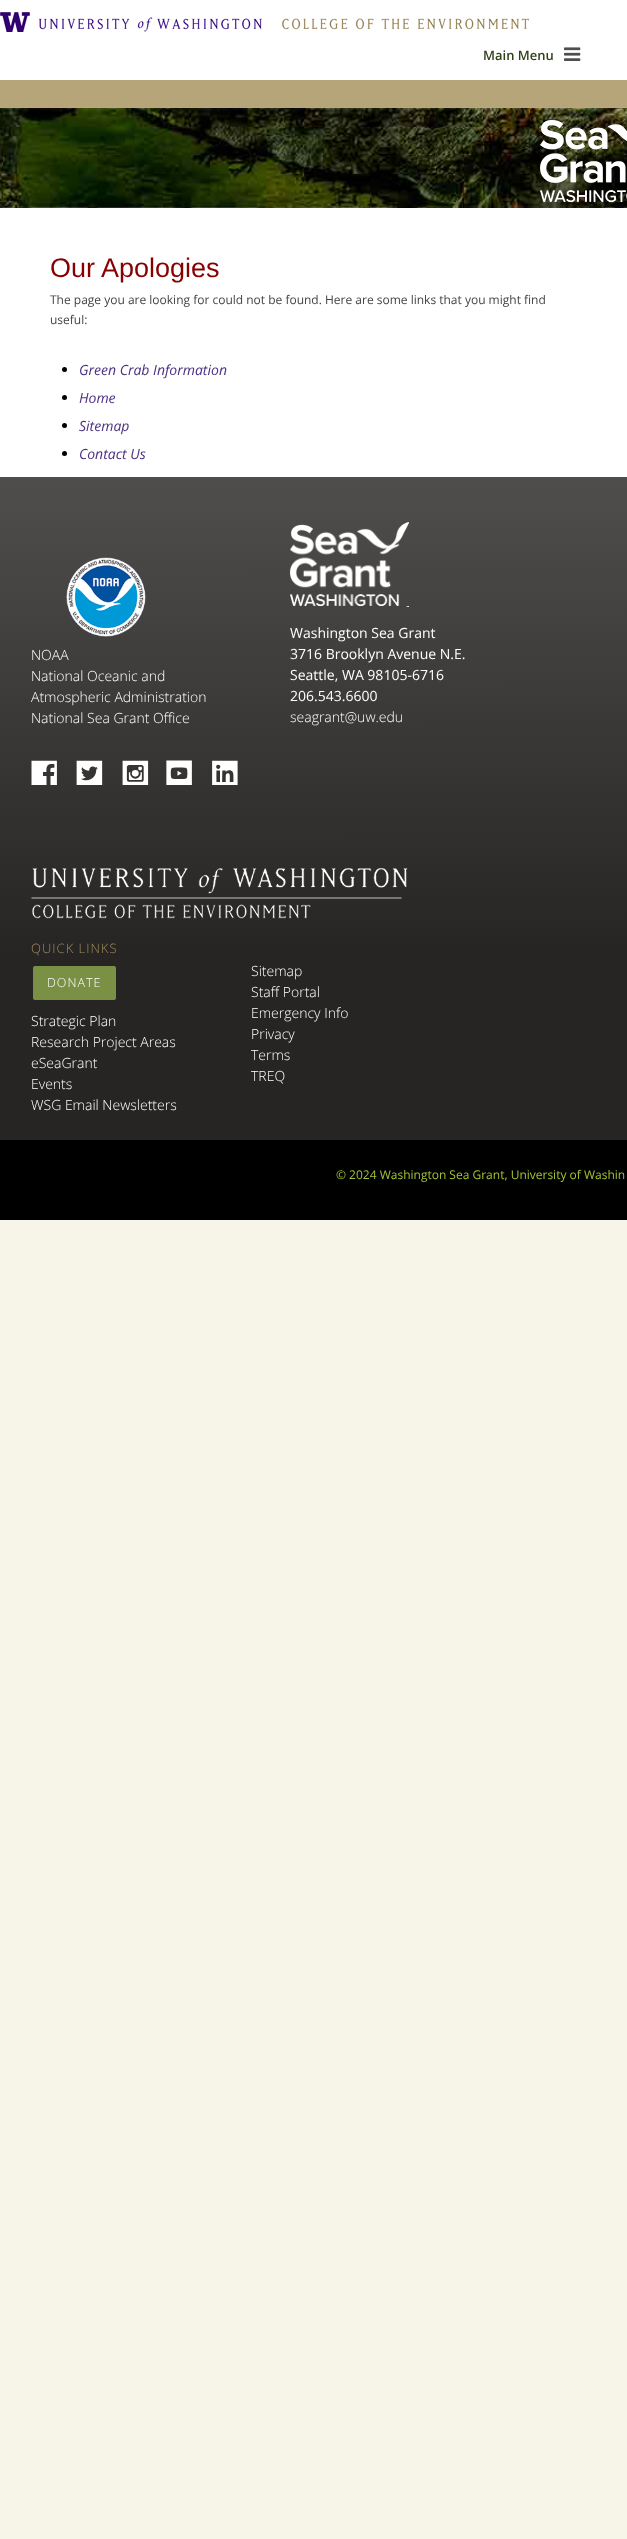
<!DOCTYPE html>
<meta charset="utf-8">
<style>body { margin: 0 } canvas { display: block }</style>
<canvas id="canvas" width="627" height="2539"></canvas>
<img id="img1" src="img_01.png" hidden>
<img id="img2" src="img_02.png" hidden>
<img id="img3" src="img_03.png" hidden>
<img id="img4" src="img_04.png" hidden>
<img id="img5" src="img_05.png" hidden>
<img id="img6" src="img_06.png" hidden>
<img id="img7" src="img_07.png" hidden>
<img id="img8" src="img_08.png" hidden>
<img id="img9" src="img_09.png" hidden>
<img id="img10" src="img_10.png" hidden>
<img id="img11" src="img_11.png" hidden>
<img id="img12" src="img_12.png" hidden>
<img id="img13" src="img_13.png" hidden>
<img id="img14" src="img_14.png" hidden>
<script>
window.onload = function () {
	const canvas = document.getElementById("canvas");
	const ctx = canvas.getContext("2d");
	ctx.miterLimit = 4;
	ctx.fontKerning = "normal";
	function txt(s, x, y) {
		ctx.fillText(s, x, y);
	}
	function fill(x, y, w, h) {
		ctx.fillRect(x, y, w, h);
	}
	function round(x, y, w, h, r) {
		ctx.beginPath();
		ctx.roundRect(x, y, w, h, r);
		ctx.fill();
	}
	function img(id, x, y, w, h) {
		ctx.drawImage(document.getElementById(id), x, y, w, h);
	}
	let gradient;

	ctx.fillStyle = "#F7F4E8";
	fill(0, 0, 627, 2539);
	ctx.fillStyle = "#FFFFFF";
	fill(0, 0, 627, 80);
	img("img1", 0, 12, 262, 20);
	img("img2", 282, 18, 247, 12);
	img("img3", 564, 47, 17, 14);
	ctx.fillStyle = "#B7A57A";
	fill(0, 80, 627, 27);
	ctx.fillStyle = "#A3C232";
	fill(0, 107, 627, 1);
	img("img4", 0, 108, 627, 100);
	img("img5", 540, 119, 87, 83);
	ctx.fillStyle = "#FFFFFF";
	fill(0, 208, 627, 269);
	ctx.fillStyle = "#000000";
	ctx.beginPath();
	ctx.arc(64.5, 369.5, 2.5, 0, Math.PI * 2);
	ctx.fill();
	ctx.beginPath();
	ctx.arc(64.5, 397.5, 2.5, 0, Math.PI * 2);
	ctx.fill();
	ctx.beginPath();
	ctx.arc(64.5, 425.5, 2.5, 0, Math.PI * 2);
	ctx.fill();
	ctx.beginPath();
	ctx.arc(64.5, 453.5, 2.5, 0, Math.PI * 2);
	ctx.fill();
	gradient = ctx.createLinearGradient(313, 477, 314, 1220);
	gradient.addColorStop(0, "#4F4E4C");
	gradient.addColorStop(0.64, "#262524");
	ctx.fillStyle = gradient;
	fill(0, 477, 627, 663);
	img("img6", 66, 557, 80, 80);
	img("img7", 31, 760, 26, 25);
	img("img8", 76, 760, 27, 25);
	img("img9", 122, 760, 27, 25);
	img("img10", 166, 760, 26, 25);
	img("img11", 212, 760, 26, 25);
	img("img12", 290, 522, 119, 85);
	img("img13", 31, 868, 377, 31);
	img("img14", 31, 904, 280, 15);
	ctx.fillStyle = "#7A9045";
	round(33, 966, 83, 34, 2);
	ctx.fillStyle = "#000000";
	fill(0, 1140, 627, 80);
	ctx.font = "600 13px Open Sans";
	ctx.fillStyle = "#2E4219";
	txt("Main Menu", 483, 60);
	ctx.font = "27px Liberation Sans";
	ctx.fillStyle = "#880000";
	txt("Our Apologies", 50, 277);
	ctx.font = "12px Open Sans";
	ctx.fillStyle = "#444444";
	txt("The page you are looking for could not be found. Here are some links that you might find", 50, 304);
	txt("useful:", 50, 324);
	ctx.font = "italic 14px Open Sans";
	ctx.fillStyle = "#4B2E83";
	txt("Green Crab Information", 79, 375);
	txt("Home", 79, 403);
	txt("Sitemap", 79, 431);
	txt("Contact Us", 79, 459);
	ctx.font = "300 14px Open Sans";
	ctx.fillStyle = "#FFFFFF";
	txt("NOAA", 31, 660);
	txt("National Oceanic and", 31, 681);
	txt("Atmospheric Administration", 31, 702);
	txt("National Sea Grant Office", 31, 723);
	ctx.font = "14px Open Sans";
	txt("Washington Sea Grant", 290, 638);
	txt("3716 Brooklyn Avenue N.E.", 290, 659);
	txt("Seattle, WA 98105-6716", 290, 680);
	txt("206.543.6600", 290, 701);
	ctx.font = "300 14px Open Sans";
	txt("seagrant@uw.edu", 290, 722);
	ctx.letterSpacing = "1px";
	ctx.font = "300 13px Open Sans";
	ctx.fillStyle = "#A18C5D";
	txt("QUICK LINKS", 31, 953);
	ctx.font = "300 12.5px Open Sans";
	ctx.fillStyle = "#FFFFFF";
	txt("DONATE", 47, 987);
	ctx.letterSpacing = "0px";
	ctx.font = "300 14px Open Sans";
	txt("Strategic Plan", 31, 1026);
	txt("Research Project Areas", 31, 1047);
	txt("eSeaGrant", 31, 1068);
	txt("Events", 31, 1089);
	txt("WSG Email Newsletters", 31, 1110);
	txt("Sitemap", 251, 976);
	txt("Staff Portal", 251, 997);
	txt("Emergency Info", 251, 1018);
	txt("Privacy", 251, 1039);
	txt("Terms", 251, 1060);
	txt("TREQ", 251, 1081);
	ctx.font = "12px Open Sans";
	ctx.fillStyle = "#A3C232";
	txt("© 2024 Washington Sea Grant, University of Washin", 336, 1179);
};
</script>
